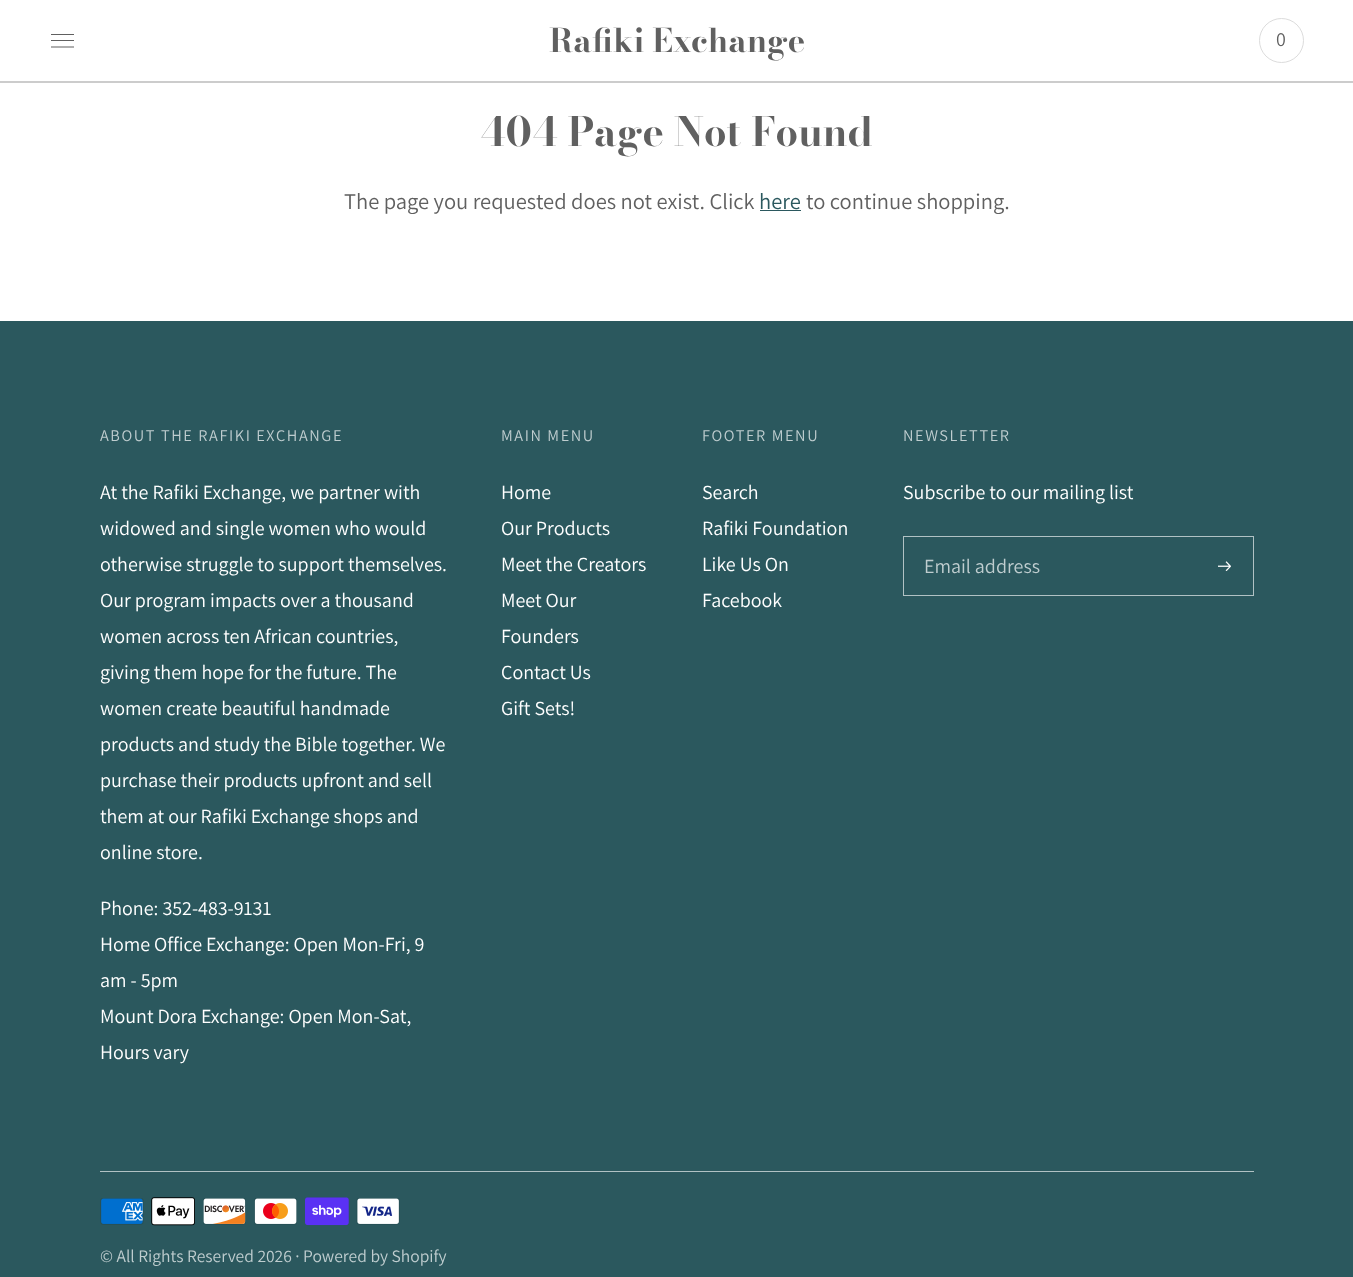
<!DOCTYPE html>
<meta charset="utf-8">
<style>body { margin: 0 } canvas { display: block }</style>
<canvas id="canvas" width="1353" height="1277"></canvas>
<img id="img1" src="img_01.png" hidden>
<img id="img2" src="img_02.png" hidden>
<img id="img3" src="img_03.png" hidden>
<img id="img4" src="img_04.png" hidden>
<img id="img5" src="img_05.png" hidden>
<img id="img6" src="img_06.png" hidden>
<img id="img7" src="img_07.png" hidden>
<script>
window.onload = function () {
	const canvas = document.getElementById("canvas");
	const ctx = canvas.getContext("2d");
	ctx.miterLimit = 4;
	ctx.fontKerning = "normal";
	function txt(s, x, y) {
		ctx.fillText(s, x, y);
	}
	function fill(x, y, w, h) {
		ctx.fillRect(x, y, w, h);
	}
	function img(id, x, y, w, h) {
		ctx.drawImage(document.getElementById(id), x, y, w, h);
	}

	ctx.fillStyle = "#FFFFFF";
	fill(0, 0, 1353, 1277);
	ctx.save();
	ctx.beginPath();
	ctx.rect(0, 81, 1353, 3);
	ctx.clip();
	ctx.fillStyle = "rgba(0, 0, 0, 0.2)";
	ctx.filter = "blur(0.5px)";
	ctx.beginPath();
	ctx.rect(0, 1, 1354, 82);
	ctx.fill();
	ctx.filter = "none";
	ctx.restore();
	ctx.beginPath();
	ctx.moveTo(51, 34.5);
	ctx.lineTo(74, 34.5);
	ctx.moveTo(51, 40.5);
	ctx.lineTo(74, 40.5);
	ctx.moveTo(51, 47);
	ctx.lineTo(74, 47);
	ctx.strokeStyle = "#606060";
	ctx.lineWidth = 1.2;
	ctx.stroke();
	ctx.beginPath();
	ctx.arc(1281.5, 40.5, 22, 0, Math.PI * 2);
	ctx.strokeStyle = "#DCDCDC";
	ctx.lineWidth = 1;
	ctx.stroke();
	ctx.fillStyle = "#2B585E";
	fill(760, 210, 41, 1);
	fill(0, 321, 1353, 956);
	ctx.strokeStyle = "#B1C2C4";
	ctx.strokeRect(903.5, 536.5, 350, 59);
	img("img1", 1218, 561, 13, 10);
	ctx.fillStyle = "#B1C2C4";
	fill(100, 1171, 1154, 1);
	img("img2", 100, 1198, 44, 27);
	img("img3", 151, 1197, 44, 29);
	img("img4", 203, 1198, 43, 27);
	img("img5", 254, 1198, 43, 27);
	img("img6", 305, 1197, 44, 29);
	img("img7", 356, 1198, 44, 27);
	ctx.font = "bold 32.5px 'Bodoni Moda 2'";
	ctx.fillStyle = "#606060";
	txt("Rafiki Exchange", 549, 52);
	ctx.font = "20px Assistant";
	txt("0", 1276, 46);
	ctx.font = "bold 40px Bodoni Moda";
	txt("404 Page Not Found", 480, 146);
	ctx.font = "22.5px Assistant";
	txt("The page you requested does not exist. Click", 344, 209);
	ctx.fillStyle = "#2B585E";
	txt("here", 759, 209);
	ctx.fillStyle = "#606060";
	txt("to continue shopping.", 806, 209);
	ctx.letterSpacing = "1.6px";
	ctx.font = "16.25px Assistant";
	ctx.fillStyle = "#BFCDCF";
	txt("ABOUT THE RAFIKI EXCHANGE", 100, 441);
	ctx.letterSpacing = "0px";
	ctx.font = "20px Assistant";
	ctx.fillStyle = "#FFFFFF";
	txt("At the Rafiki Exchange, we partner with", 100, 499);
	txt("widowed and single women who would", 100, 535);
	txt("otherwise struggle to support themselves.", 100, 571);
	txt("Our program impacts over a thousand", 100, 607);
	txt("women across ten African countries,", 100, 643);
	txt("giving them hope for the future. The", 100, 679);
	txt("women create beautiful handmade", 100, 715);
	txt("products and study the Bible together. We", 100, 751);
	txt("purchase their products upfront and sell", 100, 787);
	txt("them at our Rafiki Exchange shops and", 100, 823);
	txt("online store.", 100, 859);
	txt("Phone: 352-483-9131", 100, 915);
	txt("Home Office Exchange: Open Mon-Fri, 9", 100, 951);
	txt("am - 5pm", 100, 987);
	txt("Mount Dora Exchange: Open Mon-Sat,", 100, 1023);
	txt("Hours vary", 100, 1059);
	ctx.letterSpacing = "1.6px";
	ctx.font = "16.25px Assistant";
	ctx.fillStyle = "#BFCDCF";
	txt("MAIN MENU", 501, 441);
	ctx.letterSpacing = "0px";
	ctx.font = "20px Assistant";
	ctx.fillStyle = "#FFFFFF";
	txt("Home", 501, 499);
	txt("Our Products", 501, 535);
	txt("Meet the Creators", 501, 571);
	txt("Meet Our", 501, 607);
	txt("Founders", 501, 643);
	txt("Contact Us", 501, 679);
	txt("Gift Sets!", 501, 715);
	ctx.letterSpacing = "1.6px";
	ctx.font = "16.25px Assistant";
	ctx.fillStyle = "#BFCDCF";
	txt("FOOTER MENU", 702, 441);
	ctx.letterSpacing = "0px";
	ctx.font = "20px Assistant";
	ctx.fillStyle = "#FFFFFF";
	txt("Search", 702, 499);
	txt("Rafiki Foundation", 702, 535);
	txt("Like Us On", 702, 571);
	txt("Facebook", 702, 607);
	ctx.letterSpacing = "1.6px";
	ctx.font = "16.25px Assistant";
	ctx.fillStyle = "#BFCDCF";
	txt("NEWSLETTER", 903, 441);
	ctx.letterSpacing = "0px";
	ctx.font = "20px Assistant";
	ctx.fillStyle = "#FFFFFF";
	txt("Subscribe to our mailing list", 903, 499);
	ctx.fillStyle = "#BFCDCF";
	txt("Email address", 924, 573);
	ctx.font = "17.5px Assistant";
	txt("© All Rights Reserved 2026 · Powered by Shopify", 100, 1262);
};
</script>
